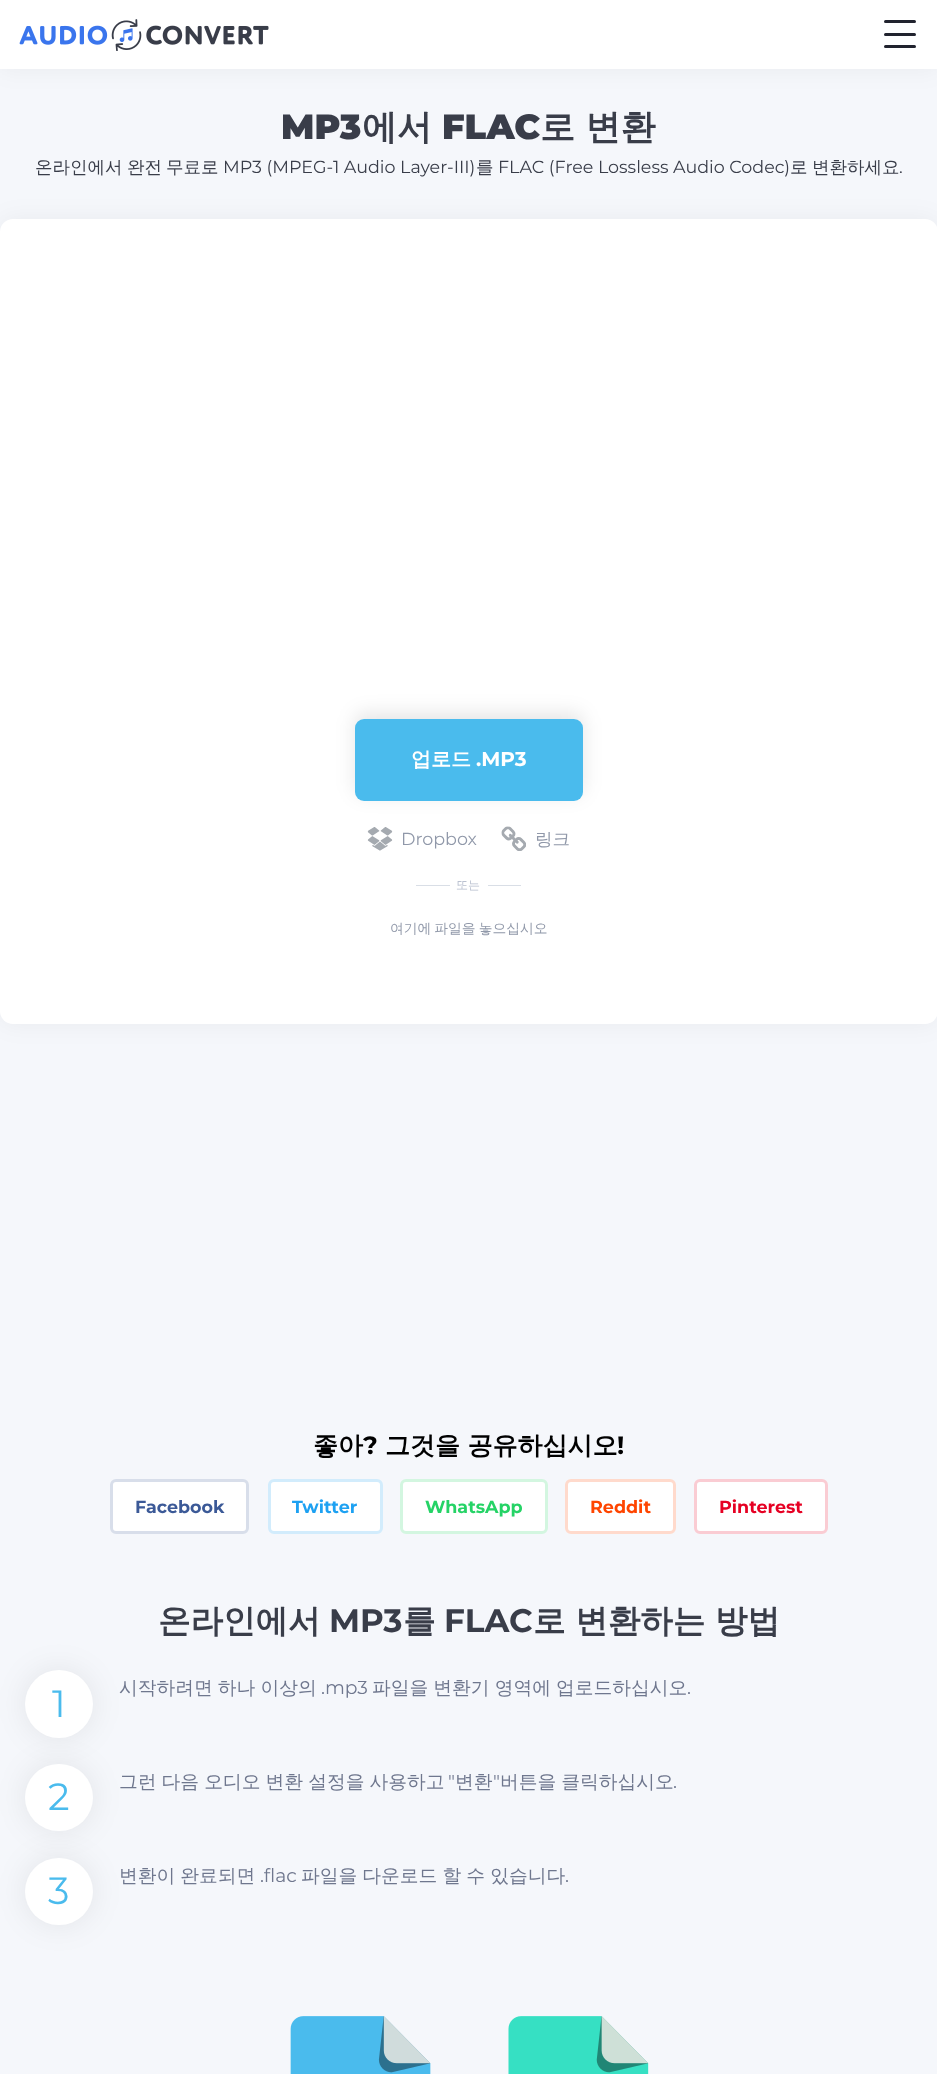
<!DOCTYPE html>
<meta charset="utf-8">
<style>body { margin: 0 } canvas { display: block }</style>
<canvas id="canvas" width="937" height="2074"></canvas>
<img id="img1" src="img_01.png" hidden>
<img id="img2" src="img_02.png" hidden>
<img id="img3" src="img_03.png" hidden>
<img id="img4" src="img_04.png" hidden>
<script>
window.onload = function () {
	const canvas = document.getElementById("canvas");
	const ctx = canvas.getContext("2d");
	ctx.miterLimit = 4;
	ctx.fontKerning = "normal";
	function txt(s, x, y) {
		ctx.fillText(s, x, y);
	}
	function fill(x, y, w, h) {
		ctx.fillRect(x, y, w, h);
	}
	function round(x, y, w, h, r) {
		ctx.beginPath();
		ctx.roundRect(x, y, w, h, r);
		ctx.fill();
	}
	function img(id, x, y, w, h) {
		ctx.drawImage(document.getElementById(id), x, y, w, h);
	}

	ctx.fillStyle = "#F5F7FB";
	fill(0, 0, 937, 2074);
	ctx.fillStyle = "rgba(0, 0, 0, 0.05)";
	ctx.filter = "blur(12.5px)";
	ctx.beginPath();
	ctx.rect(0, 0, 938, 69);
	ctx.fill();
	ctx.filter = "none";
	ctx.fillStyle = "#FFFFFF";
	fill(0, 0, 937, 69);
	img("img1", 19, 19, 250, 32);
	ctx.fillStyle = "#21232F";
	round(884, 20, 32, 3, 1.5);
	round(884, 33, 32, 3, 1.5);
	round(884, 45, 32, 3, 1.5);
	ctx.fillStyle = "rgba(0, 0, 0, 0.05)";
	ctx.filter = "blur(12.5px)";
	ctx.beginPath();
	ctx.roundRect(0, 219, 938, 805, 13);
	ctx.fill();
	ctx.filter = "none";
	ctx.fillStyle = "#FFFFFF";
	round(0, 219, 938, 805, 13);
	ctx.fillStyle = "rgba(0, 0, 0, 0.1)";
	ctx.filter = "blur(9.5px)";
	ctx.beginPath();
	ctx.roundRect(355, 713, 228, 82, 9);
	ctx.fill();
	ctx.filter = "none";
	ctx.fillStyle = "#4ABBED";
	round(355, 719, 228, 82, 9);
	img("img2", 367, 827, 26, 24);
	img("img3", 501, 826, 25, 25);
	ctx.fillStyle = "#D9DEE6";
	fill(416, 885, 34, 1);
	fill(488, 885, 33, 1);
	ctx.fillStyle = "#FFFFFF";
	ctx.beginPath();
	ctx.roundRect(111.5, 1480.5, 136, 52, 4.5);
	ctx.fill();
	ctx.strokeStyle = "#D8DEEA";
	ctx.lineWidth = 3;
	ctx.stroke();
	ctx.beginPath();
	ctx.roundRect(269.5, 1480.5, 112, 52, 4.5);
	ctx.fill();
	ctx.strokeStyle = "#D2ECFC";
	ctx.stroke();
	ctx.beginPath();
	ctx.roundRect(401.5, 1480.5, 145, 52, 4.5);
	ctx.fill();
	ctx.strokeStyle = "#D3F6E0";
	ctx.stroke();
	ctx.beginPath();
	ctx.roundRect(566.5, 1480.5, 108, 52, 4.5);
	ctx.fill();
	ctx.strokeStyle = "#FFDACC";
	ctx.stroke();
	ctx.beginPath();
	ctx.roundRect(695.5, 1480.5, 131, 52, 4.5);
	ctx.fill();
	ctx.strokeStyle = "#FACCD3";
	ctx.stroke();
	ctx.fillStyle = "rgba(0, 0, 0, 0.08)";
	ctx.filter = "blur(15.5px)";
	ctx.beginPath();
	ctx.roundRect(25, 1670, 68, 68, 34);
	ctx.fill();
	ctx.filter = "none";
	ctx.fillStyle = "#FFFFFF";
	ctx.beginPath();
	ctx.arc(59, 1704, 34, 0, Math.PI * 2);
	ctx.fill();
	ctx.fillStyle = "rgba(0, 0, 0, 0.08)";
	ctx.filter = "blur(15.5px)";
	ctx.beginPath();
	ctx.roundRect(25, 1764, 68, 67, 33.5);
	ctx.fill();
	ctx.filter = "none";
	ctx.fillStyle = "#FFFFFF";
	round(25, 1764, 68, 67, 33.5);
	ctx.fillStyle = "rgba(0, 0, 0, 0.08)";
	ctx.filter = "blur(15.5px)";
	ctx.beginPath();
	ctx.roundRect(25, 1858, 68, 67, 33.5);
	ctx.fill();
	ctx.filter = "none";
	ctx.fillStyle = "#FFFFFF";
	round(25, 1858, 68, 67, 33.5);
	img("img4", 290, 2016, 359, 58);
	ctx.font = "900 35px Montserrat";
	ctx.fillStyle = "#393D49";
	txt("MP3", 281, 139);
	ctx.font = "bold 35px WenQuanYi Zen Hei";
	txt("에서", 362, 139);
	ctx.font = "900 35px Montserrat";
	txt("FLAC", 442, 139);
	ctx.font = "bold 35px WenQuanYi Zen Hei";
	txt("로 변환", 540, 139);
	ctx.font = "500 17.5px WenQuanYi Zen Hei";
	txt("온라인에서", 35, 173);
	txt("완전", 127, 173);
	txt("무료로", 166, 173);
	ctx.font = "17.5px Montserrat";
	txt("MP3 (MPEG-1 Audio Layer-III)", 223, 173);
	ctx.font = "500 17.5px WenQuanYi Zen Hei";
	txt("를", 476, 173);
	ctx.font = "17.5px Montserrat";
	txt("FLAC (Free Lossless Audio Codec)", 498, 173);
	ctx.font = "500 17.5px WenQuanYi Zen Hei";
	txt("로", 790, 173);
	txt("변환하세요", 812, 173);
	ctx.font = "17.5px Montserrat";
	txt(".", 899, 173);
	ctx.font = "bold 20px WenQuanYi Zen Hei";
	ctx.fillStyle = "#FFFFFF";
	txt("업로드", 411, 766);
	ctx.font = "bold 20px Montserrat";
	txt(".MP3", 476, 766);
	ctx.font = "17.5px Montserrat";
	ctx.fillStyle = "#9098A9";
	txt("Dropbox", 401, 845);
	ctx.font = "500 17.5px WenQuanYi Zen Hei";
	txt("링크", 535, 845);
	ctx.font = "500 12px WenQuanYi Zen Hei";
	ctx.fillStyle = "#BAC1D0";
	txt("또는", 456, 889);
	ctx.wordSpacing = "-1px";
	ctx.font = "500 13.75px WenQuanYi Zen Hei";
	ctx.fillStyle = "#9098A9";
	txt("여기에 파일을 놓으십시오", 390, 933);
	ctx.wordSpacing = "0px";
	ctx.font = "bold 25px WenQuanYi Zen Hei";
	ctx.fillStyle = "#000000";
	txt("좋아", 313, 1454);
	ctx.font = "bold 25px Montserrat";
	txt("?", 363, 1454);
	ctx.font = "bold 25px WenQuanYi Zen Hei";
	txt("그것을 공유하십시오", 385, 1454);
	ctx.font = "bold 25px Montserrat";
	txt("!", 617, 1454);
	ctx.font = "bold 17.5px Montserrat";
	ctx.fillStyle = "#3B5997";
	txt("Facebook", 135, 1513);
	ctx.fillStyle = "#1DA1F2";
	txt("Twitter", 292, 1513);
	ctx.fillStyle = "#25D366";
	txt("WhatsApp", 425, 1513);
	ctx.fillStyle = "#FF4500";
	txt("Reddit", 590, 1513);
	ctx.fillStyle = "#E60023";
	txt("Pinterest", 719, 1513);
	ctx.font = "bold 32.5px WenQuanYi Zen Hei";
	ctx.fillStyle = "#393D49";
	txt("온라인에서", 158, 1632);
	ctx.font = "bold 32.5px Montserrat";
	txt("MP3", 329, 1632);
	ctx.font = "bold 32.5px WenQuanYi Zen Hei";
	txt("를", 403, 1632);
	ctx.font = "bold 32.5px Montserrat";
	txt("FLAC", 444, 1632);
	ctx.font = "bold 32.5px WenQuanYi Zen Hei";
	txt("로 변환하는 방법", 533, 1632);
	ctx.font = "38px Montserrat";
	ctx.fillStyle = "#4ABBED";
	txt("1", 52, 1717);
	ctx.wordSpacing = "-0.5px";
	ctx.font = "500 18.75px WenQuanYi Zen Hei";
	ctx.fillStyle = "#6F778E";
	txt("시작하려면 하나 이상의", 119, 1694);
	ctx.wordSpacing = "0px";
	ctx.font = "18.75px Montserrat";
	txt(".mp3", 321, 1694);
	ctx.wordSpacing = "-0.5px";
	ctx.font = "500 18.75px WenQuanYi Zen Hei";
	txt("파일을 변환기 영역에 업로드하십시오", 372, 1694);
	ctx.wordSpacing = "0px";
	ctx.font = "18.75px Montserrat";
	txt(".", 687, 1694);
	ctx.wordSpacing = "-0.5px";
	ctx.font = "500 18.75px WenQuanYi Zen Hei";
	txt("그런 다음 오디오 변환 설정을 사용하고", 119, 1788);
	ctx.wordSpacing = "0px";
	ctx.font = "18.75px Montserrat";
	txt("\"", 448, 1788);
	ctx.font = "500 18.75px WenQuanYi Zen Hei";
	txt("변환", 455, 1788);
	ctx.font = "18.75px Montserrat";
	txt("\"", 493, 1788);
	ctx.wordSpacing = "-0.5px";
	ctx.font = "500 18.75px WenQuanYi Zen Hei";
	txt("버튼을 클릭하십시오", 500, 1788);
	ctx.wordSpacing = "0px";
	ctx.font = "38px Montserrat";
	ctx.fillStyle = "#4ABBED";
	txt("2", 48, 1810);
	ctx.font = "18.75px Montserrat";
	ctx.fillStyle = "#6F778E";
	txt(".", 673, 1788);
	ctx.wordSpacing = "-0.5px";
	ctx.font = "500 18.75px WenQuanYi Zen Hei";
	txt("변환이 완료되면", 119, 1882);
	ctx.wordSpacing = "0px";
	ctx.font = "18.75px Montserrat";
	txt(".flac", 260, 1882);
	ctx.wordSpacing = "-0.5px";
	ctx.font = "500 18.75px WenQuanYi Zen Hei";
	txt("파일을 다운로드 할 수 있습니다", 301, 1882);
	ctx.wordSpacing = "0px";
	ctx.font = "38px Montserrat";
	ctx.fillStyle = "#4ABBED";
	txt("3", 48, 1904);
	ctx.font = "18.75px Montserrat";
	ctx.fillStyle = "#6F778E";
	txt(".", 565, 1882);
};
</script>
